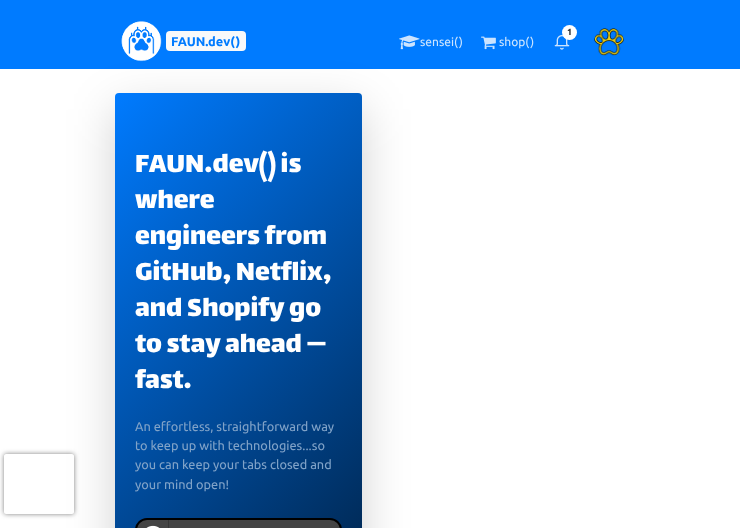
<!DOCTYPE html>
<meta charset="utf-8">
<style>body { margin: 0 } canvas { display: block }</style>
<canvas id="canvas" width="740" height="528"></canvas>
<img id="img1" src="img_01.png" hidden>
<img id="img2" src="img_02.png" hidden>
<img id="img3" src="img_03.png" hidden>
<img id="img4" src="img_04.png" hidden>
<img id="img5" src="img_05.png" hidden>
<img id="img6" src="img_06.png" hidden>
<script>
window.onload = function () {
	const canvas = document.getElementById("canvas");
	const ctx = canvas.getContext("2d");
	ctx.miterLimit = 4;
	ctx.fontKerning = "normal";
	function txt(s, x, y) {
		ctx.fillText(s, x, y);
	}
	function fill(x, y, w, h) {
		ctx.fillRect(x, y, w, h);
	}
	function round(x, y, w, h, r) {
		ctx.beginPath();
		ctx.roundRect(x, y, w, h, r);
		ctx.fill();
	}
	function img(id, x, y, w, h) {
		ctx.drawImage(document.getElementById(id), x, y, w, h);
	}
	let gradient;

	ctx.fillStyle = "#FFFFFF";
	fill(0, 0, 740, 528);
	ctx.fillStyle = "#007BFF";
	fill(0, 0, 740, 69);
	img("img1", 121, 21, 41, 41);
	ctx.fillStyle = "#F8F9FA";
	round(166, 31, 80, 20, 4);
	img("img2", 399, 35, 21, 15);
	img("img3", 481, 36, 15, 14);
	img("img4", 554, 35, 16, 15);
	ctx.fillStyle = "#FFFFFF";
	ctx.beginPath();
	ctx.arc(569.5, 32.5, 7.5, 0, Math.PI * 2);
	ctx.fill();
	img("img5", 594, 28, 30, 28);
	ctx.save();
	ctx.beginPath();
	ctx.moveTo(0, 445);
	ctx.lineTo(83, 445);
	ctx.lineTo(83, 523);
	ctx.lineTo(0, 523);
	ctx.closePath();
	ctx.moveTo(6, 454);
	ctx.lineTo(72, 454);
	ctx.bezierCurveTo(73, 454, 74, 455, 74, 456);
	ctx.lineTo(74, 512);
	ctx.bezierCurveTo(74, 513, 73, 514, 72, 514);
	ctx.lineTo(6, 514);
	ctx.bezierCurveTo(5, 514, 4, 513, 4, 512);
	ctx.lineTo(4, 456);
	ctx.bezierCurveTo(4, 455, 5, 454, 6, 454);
	ctx.closePath();
	ctx.clip("evenodd");
	ctx.fillStyle = "#808080";
	ctx.filter = "blur(2.5px)";
	ctx.beginPath();
	ctx.roundRect(4, 454, 70, 60, 2);
	ctx.fill();
	ctx.filter = "none";
	ctx.restore();
	ctx.fillStyle = "rgba(0, 0, 0, 0.18)";
	ctx.filter = "blur(24px)";
	ctx.beginPath();
	ctx.roundRect(115, 109, 247, 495, 4);
	ctx.fill();
	ctx.filter = "none";
	gradient = ctx.createLinearGradient(-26, 234, 503, 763);
	gradient.addColorStop(0, "#007BFF");
	gradient.addColorStop(1, "#000000");
	ctx.fillStyle = gradient;
	round(115, 93, 247, 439, 4);
	ctx.fillStyle = "#444444";
	ctx.beginPath();
	ctx.roundRect(136, 519, 205, 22, 11);
	ctx.fill();
	ctx.strokeStyle = "#000000";
	ctx.lineWidth = 2;
	ctx.stroke();
	ctx.fillStyle = "#363636";
	fill(168, 520, 1, 8);
	img("img6", 146, 525, 14, 3);
	ctx.font = "bold 12.75px Ubuntu";
	ctx.fillStyle = "#007BFF";
	txt("FAUN.dev()", 171, 46);
	ctx.font = "12px Ubuntu";
	ctx.fillStyle = "#CCE5FF";
	txt("sensei()", 420, 46);
	txt("shop()", 499, 46);
	ctx.font = "bold 9px Ubuntu";
	ctx.fillStyle = "#1E2022";
	txt("1", 567, 35);
	ctx.font = "30px Lalezar";
	ctx.fillStyle = "#FFFFFF";
	txt("FAUN.dev() is", 135, 172);
	txt("where", 135, 208);
	txt("engineers from", 135, 244);
	txt("GitHub, Netflix,", 135, 280);
	txt("and Shopify go", 135, 316);
	txt("to stay ahead —", 135, 352);
	txt("fast.", 135, 388);
	ctx.font = "12.75px Ubuntu";
	ctx.fillStyle = "#80A3C8";
	txt("An effortless, straightforward way", 135, 431);
	txt("to keep up with technologies...so", 135, 450);
	txt("you can keep your tabs closed and", 135, 469);
	txt("your mind open!", 135, 489);
};
</script>
